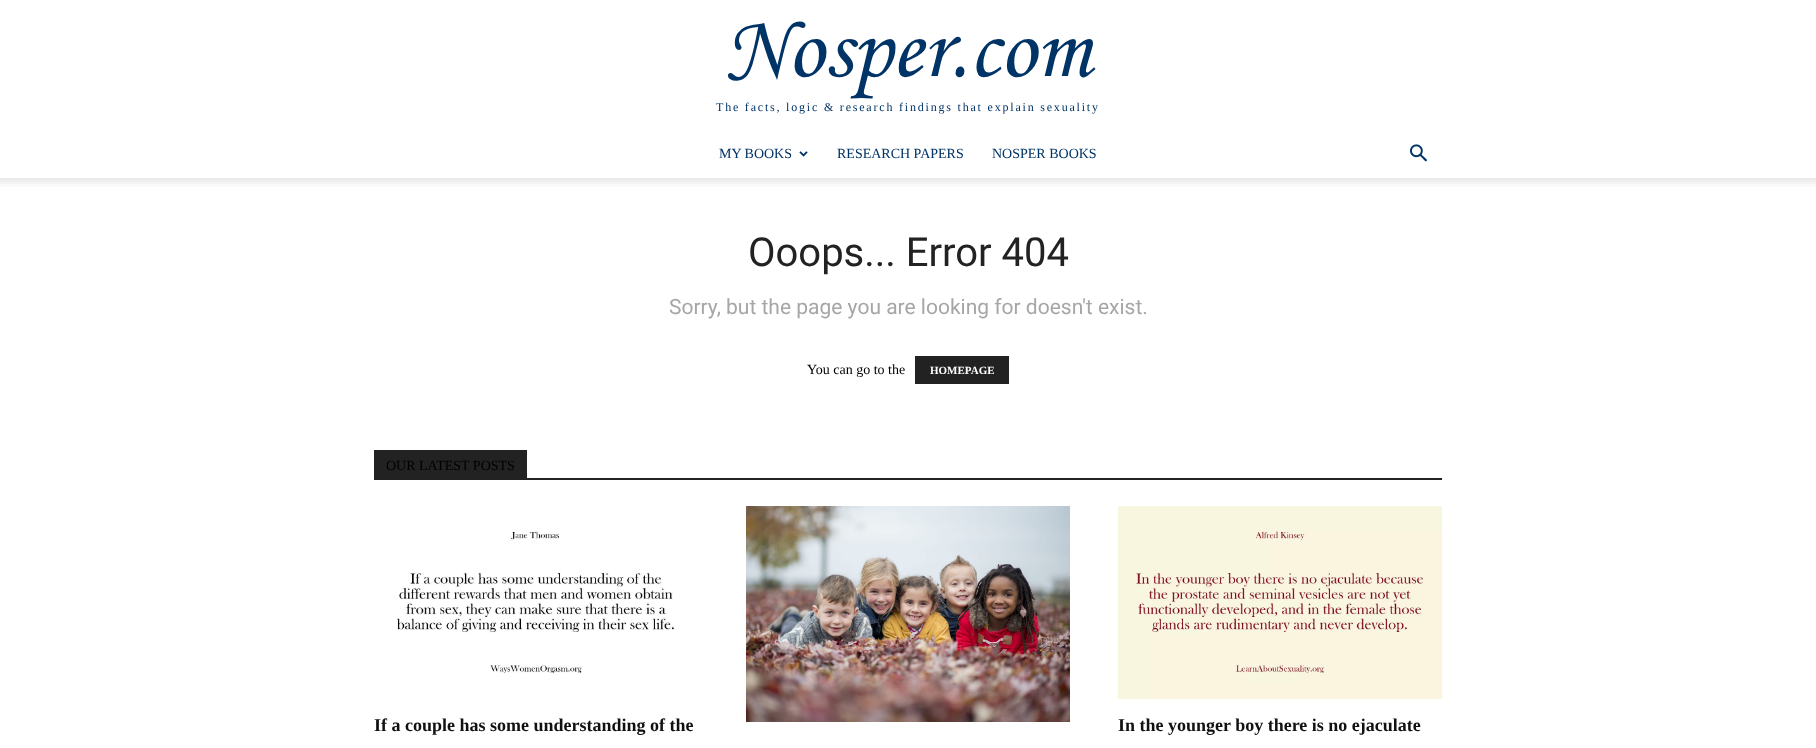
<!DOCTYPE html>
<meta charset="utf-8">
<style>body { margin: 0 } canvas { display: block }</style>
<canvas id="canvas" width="1816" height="748"></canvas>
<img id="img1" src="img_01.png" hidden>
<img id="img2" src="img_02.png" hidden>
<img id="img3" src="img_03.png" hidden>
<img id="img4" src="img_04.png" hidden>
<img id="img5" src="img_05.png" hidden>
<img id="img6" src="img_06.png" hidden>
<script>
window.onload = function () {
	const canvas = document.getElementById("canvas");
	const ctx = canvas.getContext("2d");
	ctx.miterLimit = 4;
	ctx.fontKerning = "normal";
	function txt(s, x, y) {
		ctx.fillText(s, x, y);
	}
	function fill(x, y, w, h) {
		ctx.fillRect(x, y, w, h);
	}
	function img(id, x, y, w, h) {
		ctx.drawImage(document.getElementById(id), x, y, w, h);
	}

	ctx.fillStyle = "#FFFFFF";
	fill(0, 0, 1816, 748);
	img("img1", 799, 151, 9, 6);
	img("img2", 1410, 144, 17, 18);
	img("img3", 0, 178, 1816, 9);
	ctx.fillStyle = "#222222";
	fill(915, 356, 94, 28);
	fill(374, 478, 1068, 2);
	fill(374, 450, 153, 28);
	img("img4", 746, 506, 324, 216);
	img("img5", 397, 531, 278, 142);
	img("img6", 1118, 506, 324, 193);
	ctx.font = "italic 90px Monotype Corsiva";
	ctx.fillStyle = "#003366";
	txt("Nosper.com", 724, 76);
	ctx.letterSpacing = "1.8px";
	ctx.font = "12px Liberation Serif";
	txt("The facts, logic & research findings that explain sexuality", 716, 111);
	ctx.letterSpacing = "0px";
	ctx.font = "14px Liberation Serif";
	txt("MY BOOKS", 719, 158);
	txt("RESEARCH PAPERS", 837, 158);
	txt("NOSPER BOOKS", 992, 158);
	ctx.font = "40px Roboto";
	ctx.fillStyle = "#222222";
	txt("Ooops... Error 404", 748, 266);
	ctx.font = "21px Roboto";
	ctx.fillStyle = "#A6A6A6";
	txt("Sorry, but the page you are looking for doesn't exist.", 669, 314);
	ctx.font = "14px Liberation Serif";
	ctx.fillStyle = "#000000";
	txt("You can go to the", 807, 374);
	ctx.font = "bold 11px Liberation Serif";
	ctx.fillStyle = "#FFFFFF";
	txt("HOMEPAGE", 930, 374);
	ctx.font = "14px Liberation Serif";
	ctx.fillStyle = "#000000";
	txt("OUR LATEST POSTS", 386, 470);
	ctx.font = "bold 18px Liberation Serif";
	ctx.fillStyle = "#111111";
	txt("If a couple has some understanding of the", 374, 731);
	txt("In the younger boy there is no ejaculate", 1118, 731);
};
</script>
